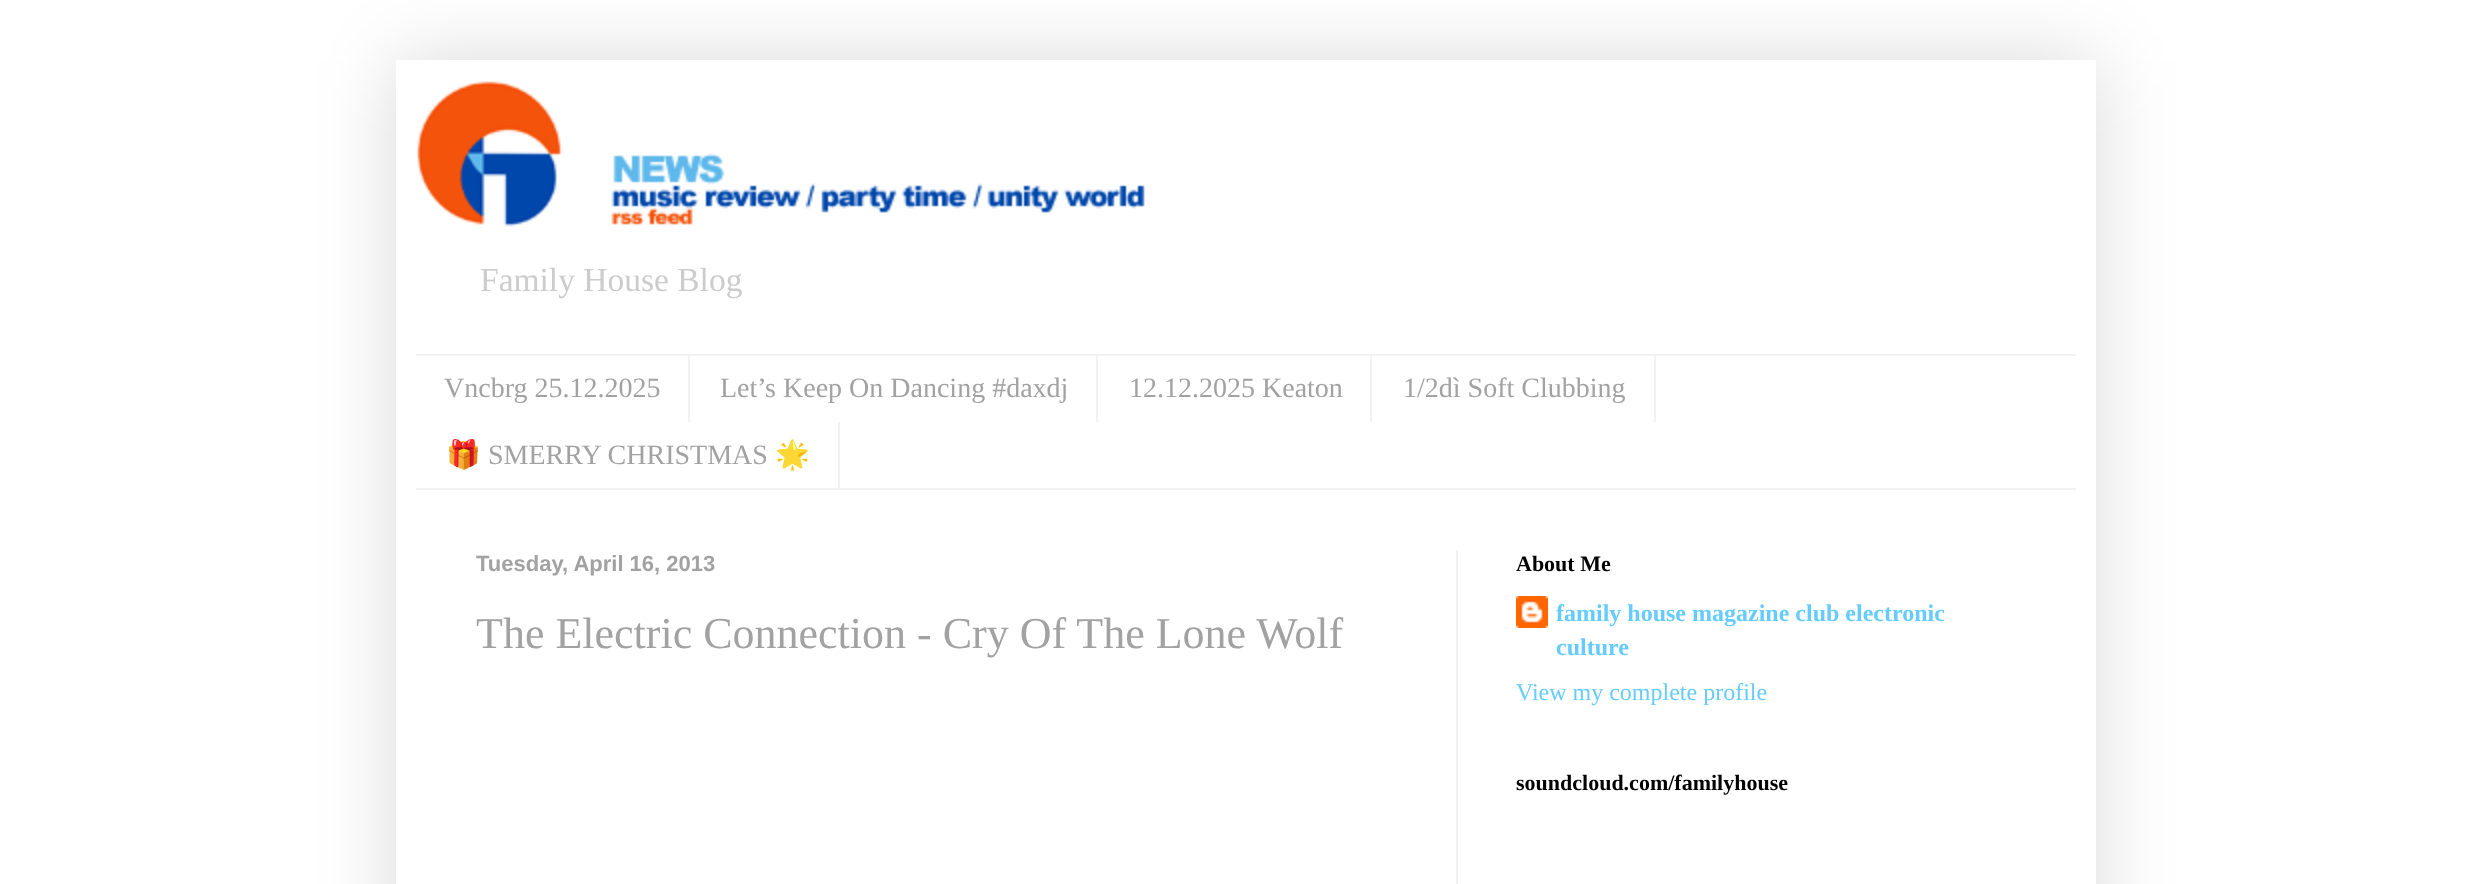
<!DOCTYPE html>
<meta charset="utf-8">
<style>body { margin: 0 } canvas { display: block }</style>
<canvas id="canvas" width="2491" height="884"></canvas>
<img id="img1" src="img_01.png" hidden>
<img id="img2" src="img_02.png" hidden>
<script>
window.onload = function () {
	const canvas = document.getElementById("canvas");
	const ctx = canvas.getContext("2d");
	ctx.miterLimit = 4;
	ctx.fontKerning = "normal";
	function txt(s, x, y) {
		ctx.fillText(s, x, y);
	}
	function fill(x, y, w, h) {
		ctx.fillRect(x, y, w, h);
	}
	function img(id, x, y, w, h) {
		ctx.drawImage(document.getElementById(id), x, y, w, h);
	}

	ctx.fillStyle = "#FFFFFF";
	fill(0, 0, 2491, 884);
	ctx.save();
	ctx.beginPath();
	ctx.moveTo(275, 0);
	ctx.lineTo(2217, 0);
	ctx.lineTo(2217, 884);
	ctx.lineTo(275, 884);
	ctx.closePath();
	ctx.moveTo(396, 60);
	ctx.lineTo(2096, 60);
	ctx.lineTo(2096, 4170);
	ctx.lineTo(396, 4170);
	ctx.closePath();
	ctx.clip("evenodd");
	ctx.fillStyle = "rgba(0, 0, 0, 0.15)";
	ctx.filter = "blur(40px)";
	ctx.beginPath();
	ctx.rect(396, 60, 1700, 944);
	ctx.fill();
	ctx.filter = "none";
	ctx.restore();
	img("img1", 417, 81, 728, 146);
	ctx.fillStyle = "#F2F2F2";
	fill(416, 354, 1660, 2);
	fill(416, 488, 1660, 2);
	fill(688, 356, 2, 66);
	fill(1096, 356, 2, 66);
	fill(1370, 356, 2, 66);
	fill(1654, 356, 2, 66);
	fill(838, 422, 2, 66);
	fill(1456, 550, 2, 334);
	img("img2", 1516, 596, 32, 32);
	ctx.font = "33.5px Liberation Serif";
	ctx.fillStyle = "#CCCCCC";
	txt("Family House Blog", 480, 291);
	ctx.font = "28px Liberation Serif";
	ctx.fillStyle = "#A2A2A2";
	txt("Vncbrg 25.12.2025", 444, 397);
	txt("Let’s Keep On Dancing #daxdj", 720, 397);
	txt("12.12.2025 Keaton", 1129, 397);
	txt("1/2dì Soft Clubbing", 1403, 397);
	ctx.font = "28px Noto Color Emoji";
	txt("🎁", 446, 464);
	ctx.font = "28px Liberation Serif";
	txt("SMERRY CHRISTMAS", 488, 464);
	ctx.font = "28px Noto Color Emoji";
	txt("🌟", 775, 464);
	ctx.font = "bold 22px Liberation Sans";
	txt("Tuesday, April 16, 2013", 476, 571);
	ctx.font = "44px Liberation Serif";
	txt("The Electric Connection - Cry Of The Lone Wolf", 476, 648);
	ctx.font = "bold 22px Liberation Serif";
	ctx.fillStyle = "#000000";
	txt("About Me", 1516, 571);
	ctx.font = "bold 24px Liberation Serif";
	ctx.fillStyle = "#66CCFF";
	txt("family house magazine club electronic", 1556, 621);
	txt("culture", 1556, 655);
	ctx.font = "24px Liberation Serif";
	txt("View my complete profile", 1516, 700);
	ctx.font = "bold 22px Liberation Serif";
	ctx.fillStyle = "#000000";
	txt("soundcloud.com/familyhouse", 1516, 790);
};
</script>
